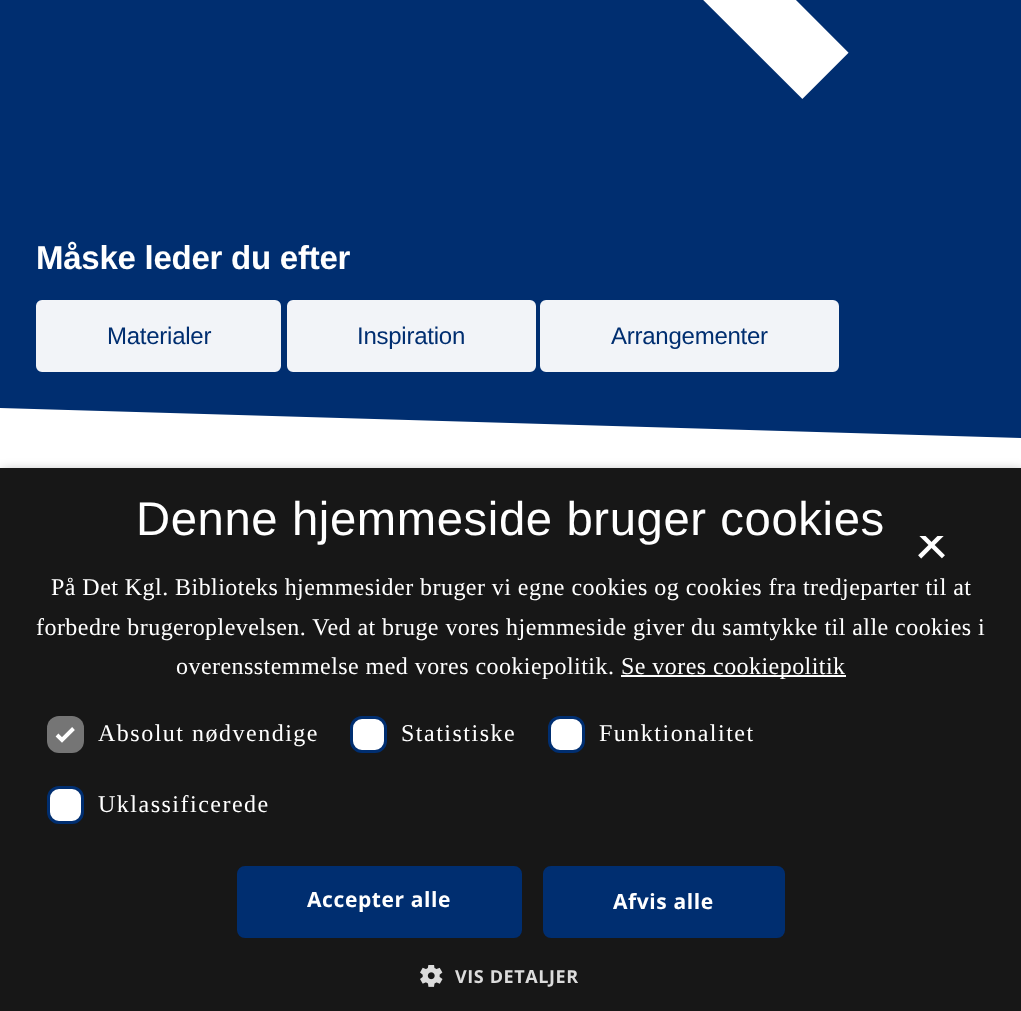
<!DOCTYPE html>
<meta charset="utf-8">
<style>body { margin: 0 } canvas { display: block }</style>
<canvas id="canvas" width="1021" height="1011"></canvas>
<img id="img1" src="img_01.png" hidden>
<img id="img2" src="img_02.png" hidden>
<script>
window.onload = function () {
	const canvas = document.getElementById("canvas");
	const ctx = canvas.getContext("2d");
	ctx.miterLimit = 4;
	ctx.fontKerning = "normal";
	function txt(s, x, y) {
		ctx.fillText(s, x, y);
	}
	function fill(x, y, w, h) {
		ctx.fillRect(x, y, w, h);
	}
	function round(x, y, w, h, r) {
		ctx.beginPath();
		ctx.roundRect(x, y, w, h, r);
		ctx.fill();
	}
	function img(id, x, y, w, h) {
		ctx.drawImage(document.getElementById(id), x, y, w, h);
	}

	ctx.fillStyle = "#FFFFFF";
	fill(0, 0, 1021, 1011);
	ctx.fillStyle = "#002E70";
	ctx.beginPath();
	ctx.moveTo(0, -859);
	ctx.lineTo(0, 408);
	ctx.lineTo(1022, 438);
	ctx.lineTo(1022, -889);
	ctx.lineTo(1006, -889);
	ctx.closePath();
	ctx.fill();
	img("img1", 703, 0, 146, 99);
	ctx.fillStyle = "#F2F4F8";
	ctx.beginPath();
	ctx.roundRect(37, 301, 243, 70, 5);
	ctx.fill();
	ctx.strokeStyle = "#F2F4F8";
	ctx.lineWidth = 2;
	ctx.stroke();
	ctx.beginPath();
	ctx.roundRect(288, 301, 247, 70, 5);
	ctx.fill();
	ctx.stroke();
	ctx.beginPath();
	ctx.roundRect(541, 301, 297, 70, 5);
	ctx.fill();
	ctx.stroke();
	ctx.fillStyle = "rgba(0, 0, 0, 0.35)";
	ctx.filter = "blur(6px)";
	ctx.beginPath();
	ctx.rect(2, 471, 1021, 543);
	ctx.fill();
	ctx.filter = "none";
	ctx.fillStyle = "#171717";
	fill(0, 468, 1021, 543);
	ctx.fillStyle = "#FFFFFF";
	fill(621, 675, 225, 2);
	ctx.fillStyle = "#757575";
	round(47, 716, 37, 37, 12);
	ctx.beginPath();
	ctx.moveTo(57, 735);
	ctx.lineTo(62, 740);
	ctx.lineTo(73.5, 728.5);
	ctx.strokeStyle = "#FFFFFF";
	ctx.lineWidth = 3.9;
	ctx.stroke();
	ctx.fillStyle = "#FFFFFF";
	ctx.beginPath();
	ctx.roundRect(351.5, 717.5, 34, 34, 10.5);
	ctx.fill();
	ctx.strokeStyle = "#002E70";
	ctx.lineWidth = 3;
	ctx.stroke();
	ctx.beginPath();
	ctx.roundRect(549.5, 717.5, 34, 34, 10.5);
	ctx.fill();
	ctx.stroke();
	ctx.beginPath();
	ctx.roundRect(48.5, 787.5, 34, 35, 10.5);
	ctx.fill();
	ctx.stroke();
	ctx.fillStyle = "#002E70";
	ctx.beginPath();
	ctx.roundRect(238, 867, 283, 70, 7);
	ctx.fill();
	ctx.lineWidth = 2;
	ctx.stroke();
	ctx.beginPath();
	ctx.roundRect(544, 867, 240, 70, 7);
	ctx.fill();
	ctx.stroke();
	img("img2", 420, 965, 23, 22);
	ctx.letterSpacing = "-0.25px";
	ctx.font = "bold 33px Liberation Sans";
	ctx.fillStyle = "#FFFFFF";
	txt("Måske leder du efter", 36, 269);
	ctx.font = "24px Liberation Sans";
	ctx.fillStyle = "#002E70";
	txt("Materialer", 107, 344);
	txt("Inspiration", 357, 344);
	txt("Arrangementer", 611, 344);
	ctx.letterSpacing = "0.6px";
	ctx.font = "47.25px Liberation Sans";
	ctx.fillStyle = "#FFFFFF";
	txt("Denne hjemmeside bruger cookies", 136, 535);
	ctx.save();
	ctx.beginPath();
	ctx.rect(909, 536, 45, 45);
	ctx.clip();
	ctx.letterSpacing = "0px";
	ctx.font = "60px Liberation Sans";
	txt("×", 914, 565);
	ctx.restore();
	ctx.letterSpacing = "0.45px";
	ctx.font = "24px Liberation Serif";
	txt("På Det Kgl. Biblioteks hjemmesider bruger vi egne cookies og cookies fra tredjeparter til at", 51, 595);
	txt("forbedre brugeroplevelsen. Ved at bruge vores hjemmeside giver du samtykke til alle cookies i", 36, 635);
	txt("overensstemmelse med vores cookiepolitik.", 176, 674);
	txt("Se vores cookiepolitik", 621, 674);
	ctx.letterSpacing = "1.5px";
	txt("Absolut nødvendige", 98, 741);
	txt("Statistiske", 401, 741);
	txt("Funktionalitet", 599, 741);
	txt("Uklassificerede", 98, 812);
	ctx.letterSpacing = "0.6px";
	ctx.font = "bold 21px Open Sans";
	txt("Accepter alle", 307, 907);
	txt("Afvis alle", 613, 909);
	ctx.font = "bold 18px Open Sans";
	ctx.fillStyle = "#DCDCDC";
	txt("VIS DETALJER", 455, 983);
};
</script>
